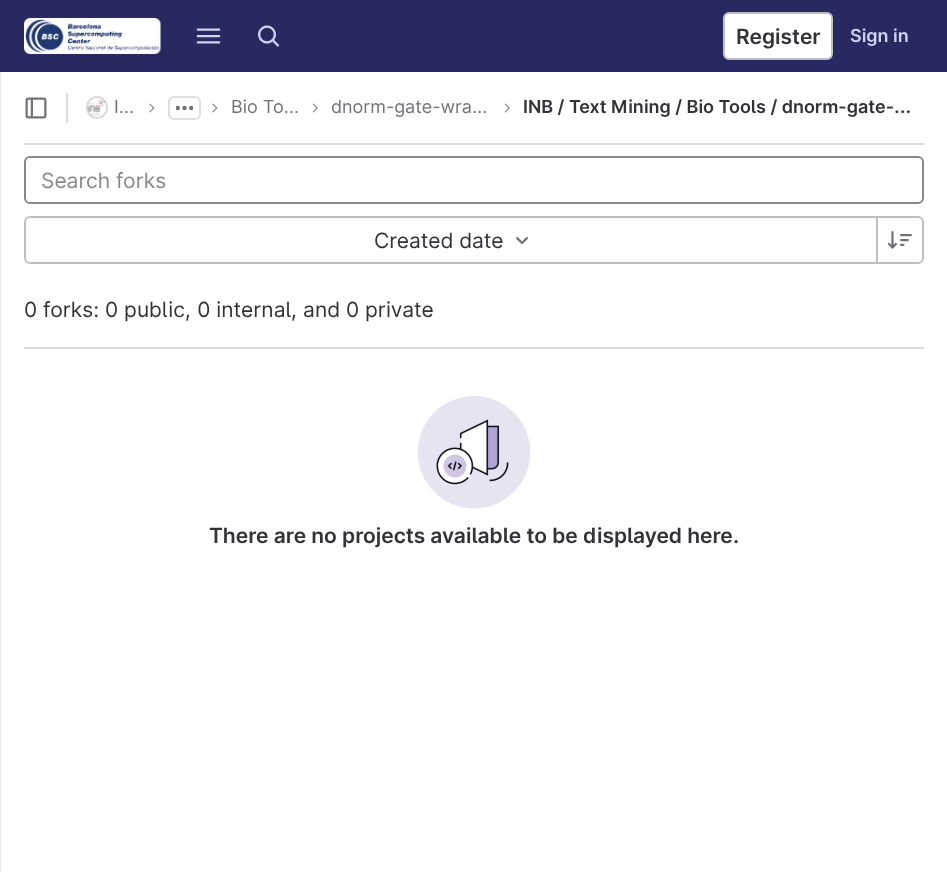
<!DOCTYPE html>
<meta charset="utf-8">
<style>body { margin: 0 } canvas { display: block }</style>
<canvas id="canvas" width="947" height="872"></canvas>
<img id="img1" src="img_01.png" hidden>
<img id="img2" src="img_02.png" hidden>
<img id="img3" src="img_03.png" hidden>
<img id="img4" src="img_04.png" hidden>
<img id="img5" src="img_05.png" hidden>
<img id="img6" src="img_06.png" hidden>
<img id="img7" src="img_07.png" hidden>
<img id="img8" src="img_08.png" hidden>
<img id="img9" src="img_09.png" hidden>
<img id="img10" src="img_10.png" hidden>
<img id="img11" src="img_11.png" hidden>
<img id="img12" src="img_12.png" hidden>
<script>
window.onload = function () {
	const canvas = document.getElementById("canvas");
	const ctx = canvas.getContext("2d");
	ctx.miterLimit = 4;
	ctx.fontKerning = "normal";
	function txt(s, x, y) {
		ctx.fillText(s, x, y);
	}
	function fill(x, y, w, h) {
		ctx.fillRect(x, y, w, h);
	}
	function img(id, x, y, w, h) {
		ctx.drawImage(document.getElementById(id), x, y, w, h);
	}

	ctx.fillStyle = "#FFFFFF";
	fill(0, 0, 947, 872);
	ctx.fillStyle = "#292961";
	fill(0, 0, 947, 72);
	img("img1", 24, 18, 137, 36);
	img("img2", 196, 28, 25, 16);
	img("img3", 258, 25, 21, 22);
	ctx.fillStyle = "#FFFFFF";
	ctx.beginPath();
	ctx.roundRect(724, 13, 108, 46, 5);
	ctx.fill();
	ctx.strokeStyle = "#BFBFC3";
	ctx.lineWidth = 2;
	ctx.stroke();
	ctx.fillStyle = "#E9E9E9";
	fill(0, 72, 1, 800);
	ctx.fillStyle = "#DCDCDE";
	fill(24, 143, 900, 2);
	img("img4", 25, 97, 22, 22);
	fill(66, 93, 2, 30);
	ctx.beginPath();
	ctx.roundRect(87, 97, 20, 21, 10);
	ctx.strokeStyle = "#DCDCDE";
	ctx.stroke();
	img("img5", 87, 99, 18, 17);
	img("img6", 149, 103, 6, 10);
	ctx.beginPath();
	ctx.roundRect(169, 97, 31, 22, 5);
	ctx.strokeStyle = "#DEDEE3";
	ctx.stroke();
	img("img7", 175, 105, 19, 6);
	img("img6", 212, 103, 6, 10);
	img("img8", 312, 103, 6, 10);
	img("img9", 504, 103, 6, 10);
	fill(24, 347, 900, 2);
	ctx.beginPath();
	ctx.roundRect(25, 157, 898, 46, 5);
	ctx.strokeStyle = "#89888D";
	ctx.stroke();
	ctx.beginPath();
	ctx.roundRect(25, 217, 852, 46, [5, 0, 0, 5]);
	ctx.strokeStyle = "#BFBFC3";
	ctx.stroke();
	img("img10", 516, 237, 12, 8);
	ctx.fillStyle = "#FFFFFF";
	ctx.beginPath();
	ctx.roundRect(877, 217, 46, 46, [0, 5, 5, 0]);
	ctx.fill();
	ctx.stroke();
	img("img11", 888, 231, 24, 18);
	img("img12", 417, 396, 114, 113);
	ctx.font = "600 21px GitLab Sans";
	ctx.fillStyle = "#333238";
	txt("Register", 736, 44);
	ctx.font = "600 18px GitLab Sans";
	ctx.fillStyle = "#D1D1F0";
	txt("Sign in", 850, 42);
	ctx.font = "18px GitLab Sans";
	ctx.fillStyle = "#737278";
	txt("I…", 114, 113);
	txt("Bio To…", 231, 113);
	ctx.save();
	ctx.beginPath();
	ctx.rect(332, 96, 162, 24);
	ctx.clip();
	txt("dnorm-gate-wra…", 331, 113);
	ctx.restore();
	ctx.font = "600 18px GitLab Sans";
	ctx.fillStyle = "#333238";
	txt("INB / Text Mining / Bio Tools / dnorm-gate-…", 523, 113);
	ctx.font = "21px GitLab Sans";
	ctx.fillStyle = "#89888D";
	txt("Search forks", 41, 188);
	ctx.fillStyle = "#333238";
	txt("Created date", 374, 248);
	txt("0 forks: 0 public, 0 internal, and 0 private", 24, 317);
	ctx.font = "600 21px GitLab Sans";
	txt("There are no projects available to be displayed here.", 209, 543);
};
</script>
